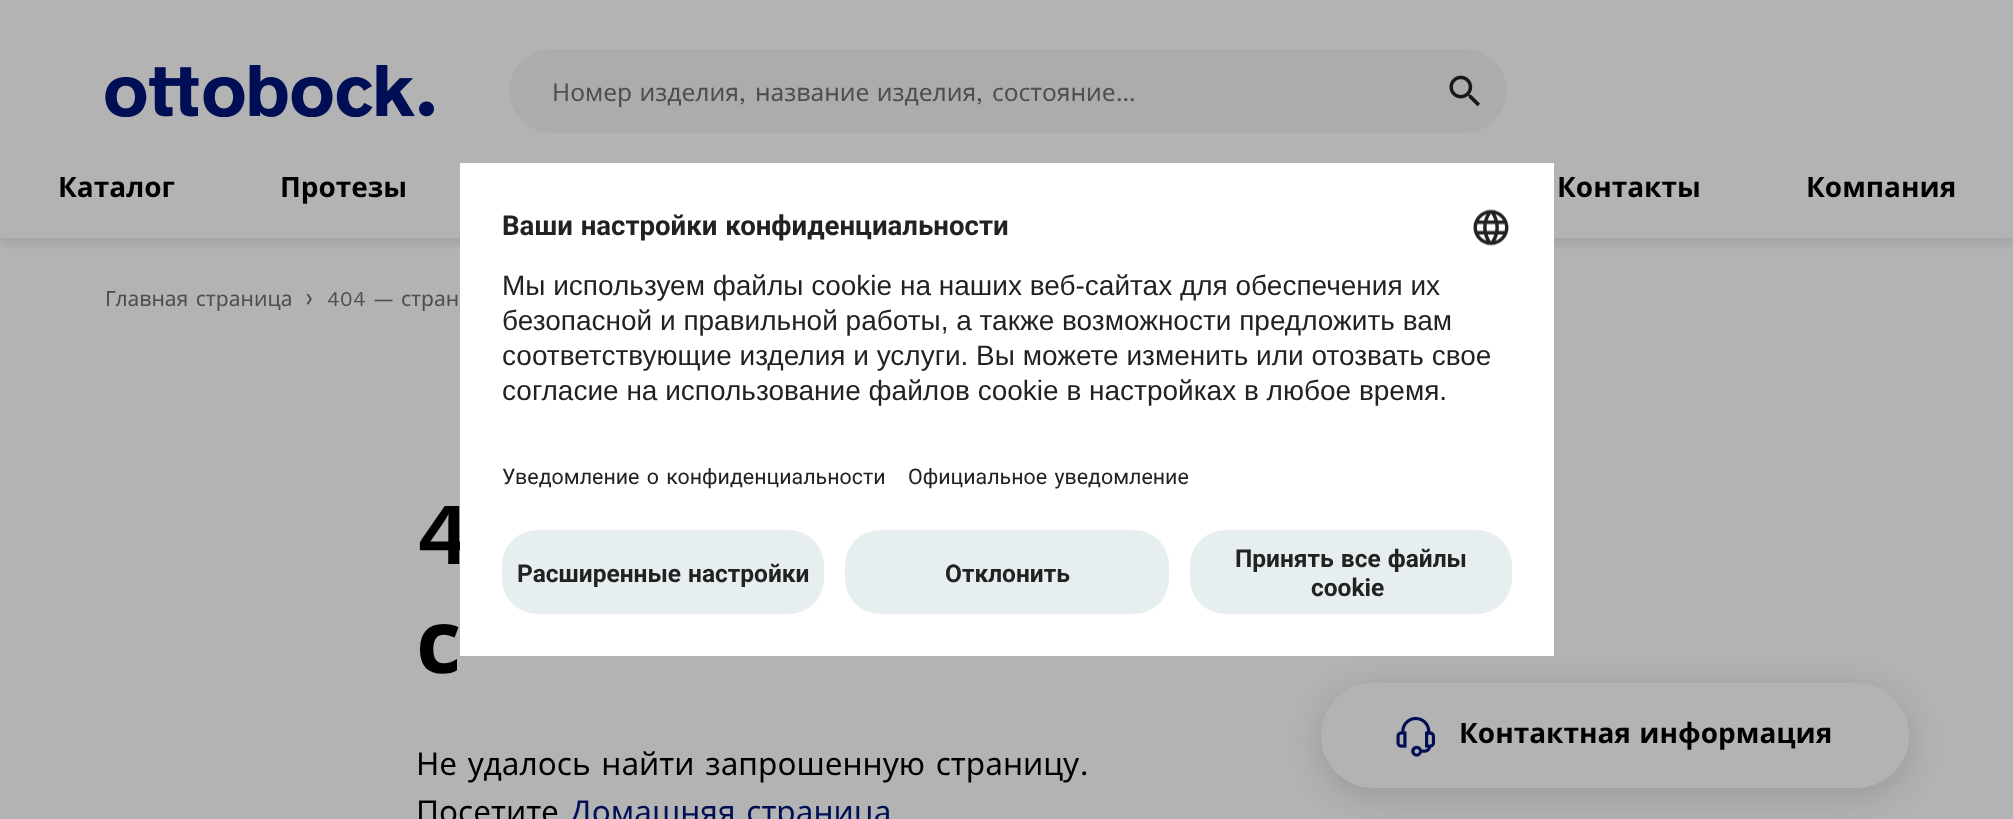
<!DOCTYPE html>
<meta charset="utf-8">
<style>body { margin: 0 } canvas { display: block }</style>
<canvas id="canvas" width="2013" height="819"></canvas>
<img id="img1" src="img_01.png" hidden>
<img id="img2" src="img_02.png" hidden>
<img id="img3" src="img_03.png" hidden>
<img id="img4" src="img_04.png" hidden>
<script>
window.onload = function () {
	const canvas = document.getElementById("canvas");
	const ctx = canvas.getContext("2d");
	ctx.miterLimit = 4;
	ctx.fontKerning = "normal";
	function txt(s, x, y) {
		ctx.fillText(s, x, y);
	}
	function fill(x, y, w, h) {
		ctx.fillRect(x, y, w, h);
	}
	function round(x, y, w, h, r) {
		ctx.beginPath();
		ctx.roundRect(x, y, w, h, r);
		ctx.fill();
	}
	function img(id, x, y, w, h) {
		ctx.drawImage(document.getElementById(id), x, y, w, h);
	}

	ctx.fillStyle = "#B3B3B3";
	fill(0, 0, 2013, 819);
	ctx.save();
	ctx.beginPath();
	ctx.rect(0, 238, 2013, 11);
	ctx.clip();
	ctx.fillStyle = "rgba(0, 0, 0, 0.1)";
	ctx.filter = "blur(7px)";
	ctx.beginPath();
	ctx.rect(-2, 2, 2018, 241);
	ctx.fill();
	ctx.filter = "none";
	ctx.restore();
	img("img1", 105, 65, 329, 52);
	ctx.fillStyle = "#ACACAC";
	round(509, 49, 998, 84, 42);
	img("img2", 1449, 75, 31, 32);
	ctx.fillStyle = "rgba(0, 0, 0, 0.15)";
	ctx.filter = "blur(17.5px)";
	ctx.beginPath();
	ctx.roundRect(1321, 691, 588, 105, 52.5);
	ctx.fill();
	ctx.filter = "none";
	ctx.fillStyle = "#B3B3B3";
	ctx.beginPath();
	ctx.roundRect(1323, 685, 584, 101, 50.5);
	ctx.fill();
	ctx.strokeStyle = "#B3B3B3";
	ctx.lineWidth = 4;
	ctx.stroke();
	img("img3", 1396, 716, 39, 41);
	ctx.wordSpacing = "1px";
	ctx.font = "24.5px Noto Sans";
	ctx.fillStyle = "#4E4E4E";
	txt("Номер изделия", 552, 101);
	ctx.wordSpacing = "0px";
	ctx.font = "24.5px Work Sans";
	txt(",", 739, 101);
	ctx.wordSpacing = "1px";
	ctx.font = "24.5px Noto Sans";
	txt("название изделия", 755, 101);
	ctx.wordSpacing = "0px";
	ctx.font = "24.5px Work Sans";
	txt(",", 976, 101);
	ctx.font = "24.5px Noto Sans";
	txt("состояние", 992, 101);
	ctx.font = "24.5px Work Sans";
	txt("...", 1116, 101);
	ctx.font = "bold 28px Noto Sans";
	ctx.fillStyle = "#000000";
	txt("Каталог", 58, 197);
	txt("Протезы", 280, 197);
	txt("Контакты", 1557, 197);
	txt("Компания", 1806, 197);
	ctx.wordSpacing = "2px";
	ctx.font = "21px Noto Sans";
	ctx.fillStyle = "#4E4E4E";
	txt("Главная страница", 105, 306);
	ctx.wordSpacing = "0px";
	ctx.font = "26px Work Sans";
	txt("›", 305, 306);
	ctx.font = "21px Work Sans";
	txt("404 —", 327, 306);
	ctx.font = "21px Noto Sans";
	txt("стран", 401, 306);
	ctx.font = "600 88px Work Sans";
	ctx.fillStyle = "#000000";
	txt("4", 416, 564);
	ctx.font = "bold 88px Noto Sans";
	txt("с", 416, 673);
	ctx.wordSpacing = "2.5px";
	ctx.font = "31.5px Noto Sans";
	txt("Не удалось найти запрошенную страницу", 416, 775);
	ctx.wordSpacing = "0px";
	ctx.font = "31.5px Work Sans";
	txt(".", 1080, 775);
	ctx.font = "31.5px Noto Sans";
	txt("Посетите", 416, 823);
	ctx.wordSpacing = "2.5px";
	ctx.fillStyle = "#000F55";
	txt("Домашняя страница", 570, 823);
	ctx.wordSpacing = "1px";
	ctx.font = "bold 28px Noto Sans";
	ctx.fillStyle = "#000000";
	txt("Контактная информация", 1459, 743);
	ctx.fillStyle = "#FFFFFF";
	fill(460, 163, 1094, 493);
	ctx.font = "bold 27.6px Roboto";
	ctx.fillStyle = "#222222";
	txt("Ваши настройки конфиденциальности", 502, 235);
	img("img4", 1473, 209, 36, 37);
	ctx.wordSpacing = "0px";
	ctx.font = "28px Liberation Sans";
	txt("Мы используем файлы cookie на наших веб-сайтах для обеспечения их", 502, 295);
	txt("безопасной и правильной работы, а также возможности предложить вам", 502, 330);
	txt("соответствующие изделия и услуги. Вы можете изменить или отозвать свое", 502, 365);
	txt("согласие на использование файлов cookie в настройках в любое время.", 502, 400);
	ctx.wordSpacing = "2px";
	ctx.font = "21.4px Roboto";
	txt("Уведомление о конфиденциальности", 502, 484);
	txt("Официальное уведомление", 908, 484);
	ctx.fillStyle = "#E7EEEF";
	round(502, 530, 322, 84, 35);
	ctx.wordSpacing = "1px";
	ctx.font = "bold 24.5px Roboto";
	ctx.fillStyle = "#222222";
	txt("Расширенные настройки", 517, 582);
	ctx.fillStyle = "#E7EEEF";
	round(845, 530, 324, 84, 35);
	ctx.wordSpacing = "0px";
	ctx.fillStyle = "#222222";
	txt("Отклонить", 945, 582);
	ctx.fillStyle = "#E7EEEF";
	round(1190, 530, 322, 84, 35);
	ctx.wordSpacing = "1px";
	ctx.fillStyle = "#222222";
	txt("Принять все файлы", 1235, 567);
	ctx.wordSpacing = "0px";
	txt("cookie", 1311, 596);
};
</script>
